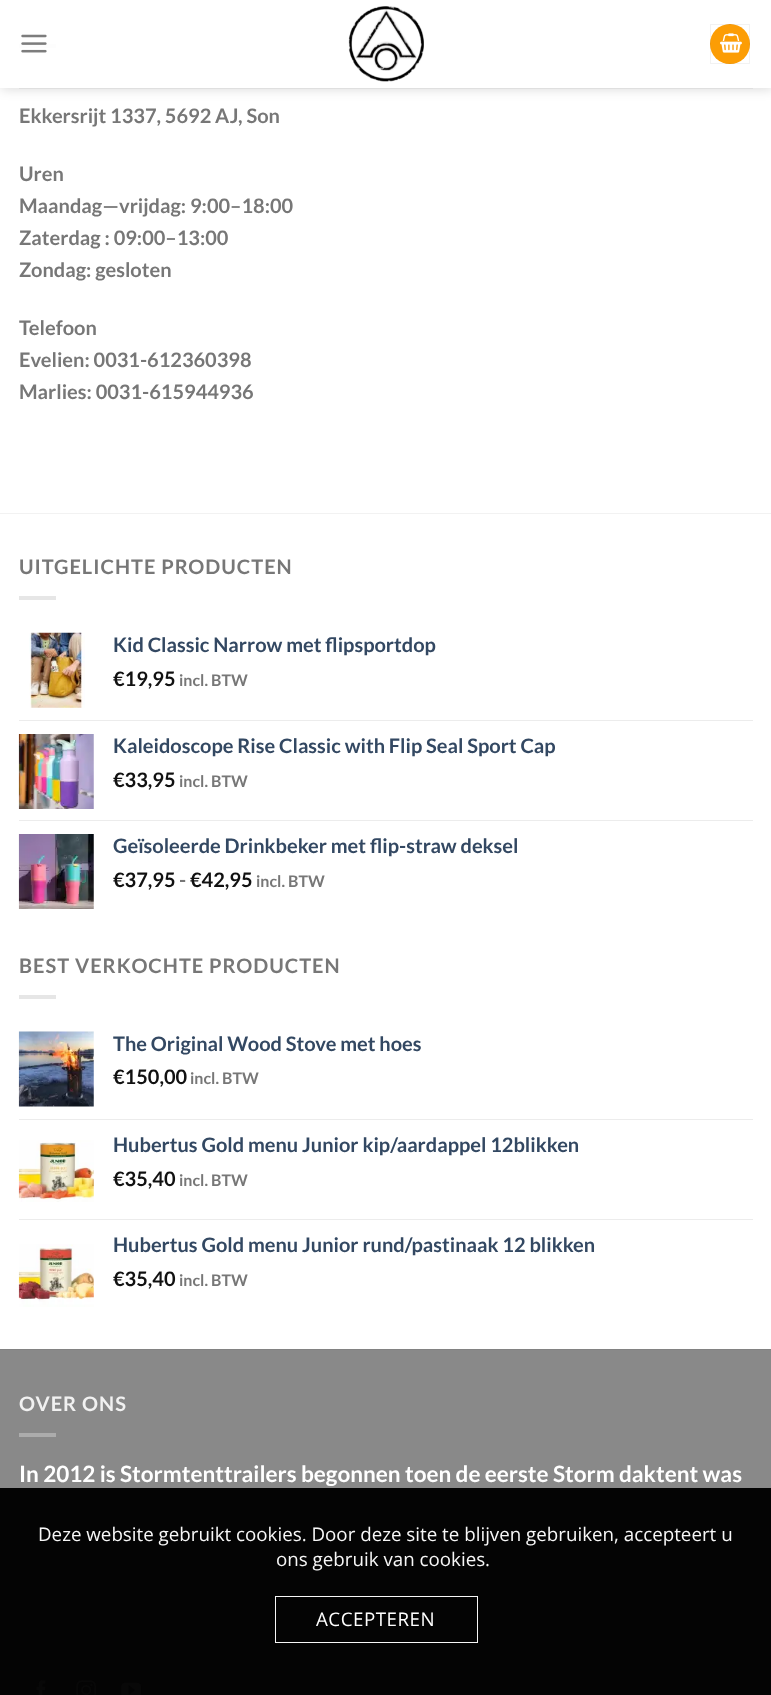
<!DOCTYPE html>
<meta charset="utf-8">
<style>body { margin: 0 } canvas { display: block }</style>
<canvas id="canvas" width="771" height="1695"></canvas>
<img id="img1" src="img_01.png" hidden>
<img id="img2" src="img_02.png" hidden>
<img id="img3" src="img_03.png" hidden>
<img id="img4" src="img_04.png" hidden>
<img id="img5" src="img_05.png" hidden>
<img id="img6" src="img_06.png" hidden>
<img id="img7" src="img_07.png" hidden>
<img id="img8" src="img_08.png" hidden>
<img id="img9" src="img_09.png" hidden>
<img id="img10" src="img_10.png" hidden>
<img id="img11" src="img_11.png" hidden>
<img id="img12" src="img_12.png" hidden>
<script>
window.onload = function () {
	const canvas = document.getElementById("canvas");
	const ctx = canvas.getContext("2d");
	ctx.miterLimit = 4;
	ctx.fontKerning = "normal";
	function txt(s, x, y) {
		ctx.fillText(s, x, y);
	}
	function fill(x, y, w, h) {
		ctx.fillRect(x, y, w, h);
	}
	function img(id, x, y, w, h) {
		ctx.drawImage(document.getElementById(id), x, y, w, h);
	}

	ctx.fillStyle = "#FFFFFF";
	fill(0, 0, 771, 1695);
	ctx.fillStyle = "#E6E6E6";
	fill(19, 44, 37, 4);
	ctx.save();
	ctx.beginPath();
	ctx.moveTo(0, 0);
	ctx.lineTo(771, 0);
	ctx.lineTo(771, 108);
	ctx.lineTo(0, 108);
	ctx.closePath();
	ctx.moveTo(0, 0);
	ctx.lineTo(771, 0);
	ctx.lineTo(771, 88);
	ctx.lineTo(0, 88);
	ctx.closePath();
	ctx.clip("evenodd");
	ctx.fillStyle = "rgba(0, 0, 0, 0.15)";
	ctx.filter = "blur(6px)";
	ctx.beginPath();
	ctx.rect(1, 1, 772, 88);
	ctx.fill();
	ctx.filter = "none";
	ctx.restore();
	ctx.fillStyle = "rgba(255, 255, 255, 0.9)";
	fill(0, 44, 771, 44);
	img("img1", 21, 34, 26, 19);
	img("img2", 348, 6, 76, 76);
	ctx.fillStyle = "#FC9D05";
	ctx.beginPath();
	ctx.arc(730, 44, 20, 0, Math.PI * 2);
	ctx.fill();
	ctx.strokeStyle = "rgba(0, 0, 0, 0.05)";
	ctx.strokeRect(710.5, 24.5, 39, 39);
	img("img3", 720, 33, 22, 20);
	ctx.fillStyle = "rgba(119, 119, 119, 0.1)";
	fill(19, 88, 734, 1);
	ctx.fillStyle = "#F2F2F2";
	fill(0, 513, 771, 1);
	ctx.fillStyle = "#E6E6E6";
	fill(19, 596, 37, 4);
	img("img4", 29, 632, 56, 76);
	ctx.fillStyle = "#ECECEC";
	fill(19, 720, 734, 1);
	img("img5", 18, 734, 76, 75);
	fill(19, 820, 734, 1);
	img("img6", 18, 834, 76, 75);
	ctx.fillStyle = "#E6E6E6";
	fill(19, 995, 37, 4);
	img("img7", 18, 1031, 76, 76);
	ctx.fillStyle = "#ECECEC";
	fill(19, 1119, 734, 1);
	img("img8", 18, 1140, 76, 62);
	fill(19, 1219, 734, 1);
	img("img9", 18, 1244, 76, 63);
	ctx.fillStyle = "#898989";
	fill(0, 1350, 771, 138);
	ctx.fillStyle = "#040404";
	fill(0, 1488, 771, 207);
	ctx.fillStyle = "#828282";
	fill(0, 1349, 771, 1);
	ctx.fillStyle = "#ACACAC";
	fill(19, 1433, 37, 4);
	img("img10", 36, 1680, 10, 15);
	img("img11", 76, 1680, 20, 15);
	img("img12", 121, 1682, 21, 13);
	ctx.strokeStyle = "rgba(255, 255, 255, 0.97)";
	ctx.strokeRect(275.5, 1596.5, 202, 46);
	ctx.font = "bold 20px Lato";
	ctx.fillStyle = "#777777";
	txt("Ekkersrijt 1337, 5692 AJ, Son", 19, 123);
	txt("Uren", 19, 181);
	txt("Maandag—vrijdag: 9:00–18:00", 19, 213);
	txt("Zaterdag : 09:00–13:00", 19, 245);
	txt("Zondag: gesloten", 19, 277);
	txt("Telefoon", 19, 335);
	txt("Evelien: 0031-612360398", 19, 367);
	txt("Marlies: 0031-615944936", 19, 399);
	ctx.letterSpacing = "1px";
	txt("UITGELICHTE PRODUCTEN", 19, 574);
	ctx.letterSpacing = "0px";
	ctx.fillStyle = "#334862";
	txt("Kid Classic Narrow met flipsportdop", 113, 652);
	ctx.fillStyle = "#111111";
	txt("€19,95", 113, 686);
	ctx.font = "bold 16px Lato";
	ctx.fillStyle = "#777777";
	txt("incl. BTW", 179, 686);
	ctx.font = "bold 20px Lato";
	ctx.fillStyle = "#334862";
	txt("Kaleidoscope Rise Classic with Flip Seal Sport Cap", 113, 753);
	ctx.fillStyle = "#111111";
	txt("€33,95", 113, 787);
	ctx.font = "bold 16px Lato";
	ctx.fillStyle = "#777777";
	txt("incl. BTW", 179, 787);
	ctx.font = "bold 20px Lato";
	ctx.fillStyle = "#334862";
	txt("Geïsoleerde Drinkbeker met flip-straw deksel", 113, 853);
	ctx.fillStyle = "#111111";
	txt("€37,95", 113, 887);
	ctx.fillStyle = "#777777";
	txt("-", 179, 887);
	ctx.fillStyle = "#111111";
	txt("€42,95", 190, 887);
	ctx.font = "bold 16px Lato";
	ctx.fillStyle = "#777777";
	txt("incl. BTW", 256, 887);
	ctx.letterSpacing = "1px";
	ctx.font = "bold 20px Lato";
	txt("BEST VERKOCHTE PRODUCTEN", 19, 973);
	ctx.save();
	ctx.beginPath();
	ctx.rect(113, 1031, 640, 27);
	ctx.clip();
	ctx.letterSpacing = "0px";
	ctx.fillStyle = "#334862";
	txt("The Original Wood Stove met hoes", 113, 1051);
	ctx.restore();
	ctx.letterSpacing = "0px";
	ctx.fillStyle = "#111111";
	txt("€150,00", 113, 1084);
	ctx.font = "bold 16px Lato";
	ctx.fillStyle = "#777777";
	txt("incl. BTW", 190, 1084);
	ctx.font = "bold 20px Lato";
	ctx.fillStyle = "#334862";
	txt("Hubertus Gold menu Junior kip/aardappel 12blikken", 113, 1152);
	ctx.fillStyle = "#111111";
	txt("€35,40", 113, 1186);
	ctx.font = "bold 16px Lato";
	ctx.fillStyle = "#777777";
	txt("incl. BTW", 179, 1186);
	ctx.font = "bold 20px Lato";
	ctx.fillStyle = "#334862";
	txt("Hubertus Gold menu Junior rund/pastinaak 12 blikken", 113, 1252);
	ctx.fillStyle = "#111111";
	txt("€35,40", 113, 1286);
	ctx.font = "bold 16px Lato";
	ctx.fillStyle = "#777777";
	txt("incl. BTW", 179, 1286);
	ctx.letterSpacing = "1px";
	ctx.font = "bold 20px Lato";
	ctx.fillStyle = "#F1F1F1";
	txt("OVER ONS", 19, 1411);
	ctx.letterSpacing = "0px";
	ctx.font = "bold 22.5px Lato";
	ctx.fillStyle = "#FFFFFF";
	txt("In 2012 is Stormtenttrailers begonnen toen de eerste Storm daktent was", 19, 1482);
	ctx.font = "18.75px Open Sans";
	ctx.fillStyle = "#F7F7F7";
	txt("Deze website gebruikt cookies. Door deze site te blijven gebruiken, accepteert u", 38, 1541);
	txt("ons gebruik van cookies.", 276, 1566);
	ctx.letterSpacing = "0.5px";
	ctx.fillStyle = "#FFFFFF";
	txt("ACCEPTEREN", 316, 1626);
};
</script>
